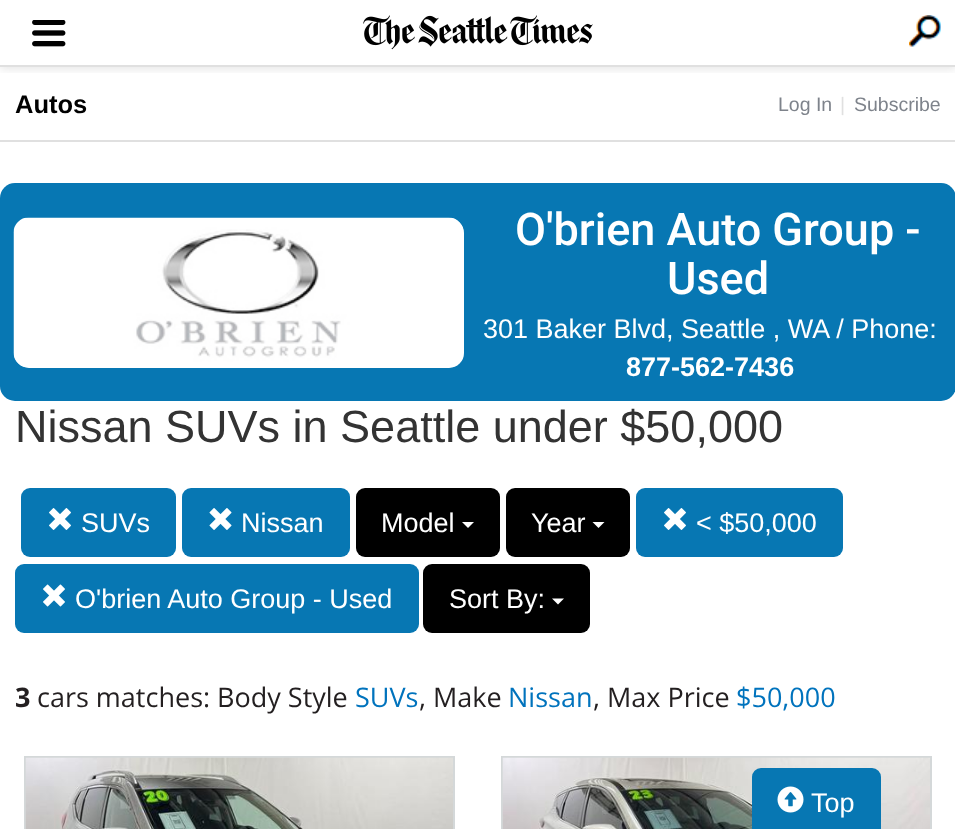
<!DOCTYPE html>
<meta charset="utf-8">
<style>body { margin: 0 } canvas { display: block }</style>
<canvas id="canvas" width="955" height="829"></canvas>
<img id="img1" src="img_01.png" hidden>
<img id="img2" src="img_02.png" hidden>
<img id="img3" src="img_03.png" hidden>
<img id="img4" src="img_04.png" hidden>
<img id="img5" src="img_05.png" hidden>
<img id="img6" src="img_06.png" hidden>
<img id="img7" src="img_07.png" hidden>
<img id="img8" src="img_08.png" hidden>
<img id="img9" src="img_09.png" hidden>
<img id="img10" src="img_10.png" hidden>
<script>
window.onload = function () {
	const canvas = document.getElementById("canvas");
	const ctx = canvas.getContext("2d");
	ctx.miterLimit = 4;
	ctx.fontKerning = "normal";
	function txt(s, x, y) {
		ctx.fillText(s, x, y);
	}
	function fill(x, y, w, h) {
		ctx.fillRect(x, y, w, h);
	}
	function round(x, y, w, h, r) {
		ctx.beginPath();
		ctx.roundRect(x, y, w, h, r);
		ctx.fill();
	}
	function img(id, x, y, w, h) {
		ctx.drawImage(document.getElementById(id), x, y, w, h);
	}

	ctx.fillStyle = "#FFFFFF";
	fill(0, 0, 955, 829);
	ctx.save();
	ctx.beginPath();
	ctx.rect(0, 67, 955, 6);
	ctx.clip();
	ctx.fillStyle = "rgba(0, 0, 0, 0.1)";
	ctx.filter = "blur(5px)";
	ctx.beginPath();
	ctx.rect(0, 3, 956, 66);
	ctx.fill();
	ctx.filter = "none";
	ctx.restore();
	ctx.fillStyle = "#E0E0E0";
	fill(0, 65, 955, 2);
	img("img1", 32, 20, 34, 27);
	img("img2", 363, 15, 230, 35);
	img("img3", 909, 15, 32, 32);
	fill(0, 140, 955, 2);
	ctx.fillStyle = "#0777B3";
	round(0, 183, 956, 218, 15);
	ctx.fillStyle = "#FFFFFF";
	round(14, 218, 450, 150, 15);
	img("img4", 13, 217, 451, 151);
	ctx.fillStyle = "#0777B3";
	round(21, 488, 155, 69, 9);
	img("img5", 49, 508, 22, 22);
	round(182, 488, 168, 69, 9);
	img("img6", 209, 508, 23, 22);
	ctx.fillStyle = "#000000";
	round(356, 488, 144, 69, 9);
	ctx.fillStyle = "#FFFFFF";
	ctx.beginPath();
	ctx.moveTo(462, 522);
	ctx.lineTo(474, 522);
	ctx.lineTo(468, 528);
	ctx.closePath();
	ctx.fill();
	ctx.fillStyle = "#000000";
	round(506, 488, 124, 69, 9);
	ctx.fillStyle = "#FFFFFF";
	ctx.beginPath();
	ctx.moveTo(592.5, 522);
	ctx.lineTo(604.5, 522);
	ctx.lineTo(598.5, 528);
	ctx.closePath();
	ctx.fill();
	ctx.fillStyle = "#0777B3";
	round(636, 488, 207, 69, 9);
	img("img5", 664, 508, 22, 22);
	round(15, 564, 404, 69, 9);
	img("img7", 43, 584, 22, 23);
	ctx.fillStyle = "#000000";
	round(423, 564, 167, 69, 9);
	ctx.fillStyle = "#FFFFFF";
	ctx.beginPath();
	ctx.moveTo(552, 598.5);
	ctx.lineTo(564, 598.5);
	ctx.lineTo(558, 604.5);
	ctx.closePath();
	ctx.fill();
	ctx.strokeStyle = "#D4D8D9";
	ctx.lineWidth = 2;
	ctx.strokeRect(25, 757, 429, 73);
	img("img8", 25, 757, 428, 72);
	ctx.strokeRect(502, 757, 429, 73);
	img("img9", 502, 757, 428, 72);
	ctx.fillStyle = "#0777B3";
	ctx.beginPath();
	ctx.roundRect(753, 769, 127, 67, 8);
	ctx.fill();
	ctx.strokeStyle = "#0777B3";
	ctx.stroke();
	img("img10", 777, 786, 27, 27);
	ctx.font = "bold 25.5px Liberation Sans";
	ctx.fillStyle = "#000000";
	txt("Autos", 15, 113);
	ctx.font = "19.5px Liberation Sans";
	ctx.fillStyle = "#7E838B";
	txt("Log In", 778, 111);
	ctx.fillStyle = "#E0E0E0";
	txt("|", 840, 111);
	ctx.fillStyle = "#7E838B";
	txt("Subscribe", 854, 111);
	ctx.font = "500 45px Roboto";
	ctx.fillStyle = "#FFFFFF";
	txt("O'brien Auto Group -", 515, 245);
	txt("Used", 667, 294);
	ctx.font = "27px Liberation Sans";
	txt("301 Baker Blvd, Seattle , WA / Phone:", 483, 338);
	ctx.font = "bold 27px Liberation Sans";
	txt("877-562-7436", 626, 376);
	ctx.font = "45px Liberation Sans";
	ctx.fillStyle = "#333333";
	txt("Nissan SUVs in Seattle under $50,000", 15, 442);
	ctx.font = "27px Liberation Sans";
	ctx.fillStyle = "#FFFFFF";
	txt("SUVs", 81, 532);
	txt("Nissan", 241, 532);
	txt("Model", 381, 532);
	txt("Year", 531, 532);
	txt("< $50,000", 696, 532);
	txt("O'brien Auto Group - Used", 75, 608);
	txt("Sort By:", 449, 608);
	ctx.font = "bold 27px Open Sans";
	ctx.fillStyle = "#231F20";
	txt("3", 15, 707);
	ctx.font = "27px Open Sans";
	txt("cars matches: Body Style", 37, 707);
	ctx.fillStyle = "#0073BD";
	txt("SUVs", 355, 707);
	ctx.fillStyle = "#231F20";
	txt(", Make", 419, 707);
	ctx.fillStyle = "#0073BD";
	txt("Nissan", 508, 707);
	ctx.fillStyle = "#231F20";
	txt(", Max Price", 593, 707);
	ctx.fillStyle = "#0073BD";
	txt("$50,000", 736, 707);
	ctx.font = "27px Liberation Sans";
	ctx.fillStyle = "#FFFFFF";
	txt("Top", 811, 812);
};
</script>
